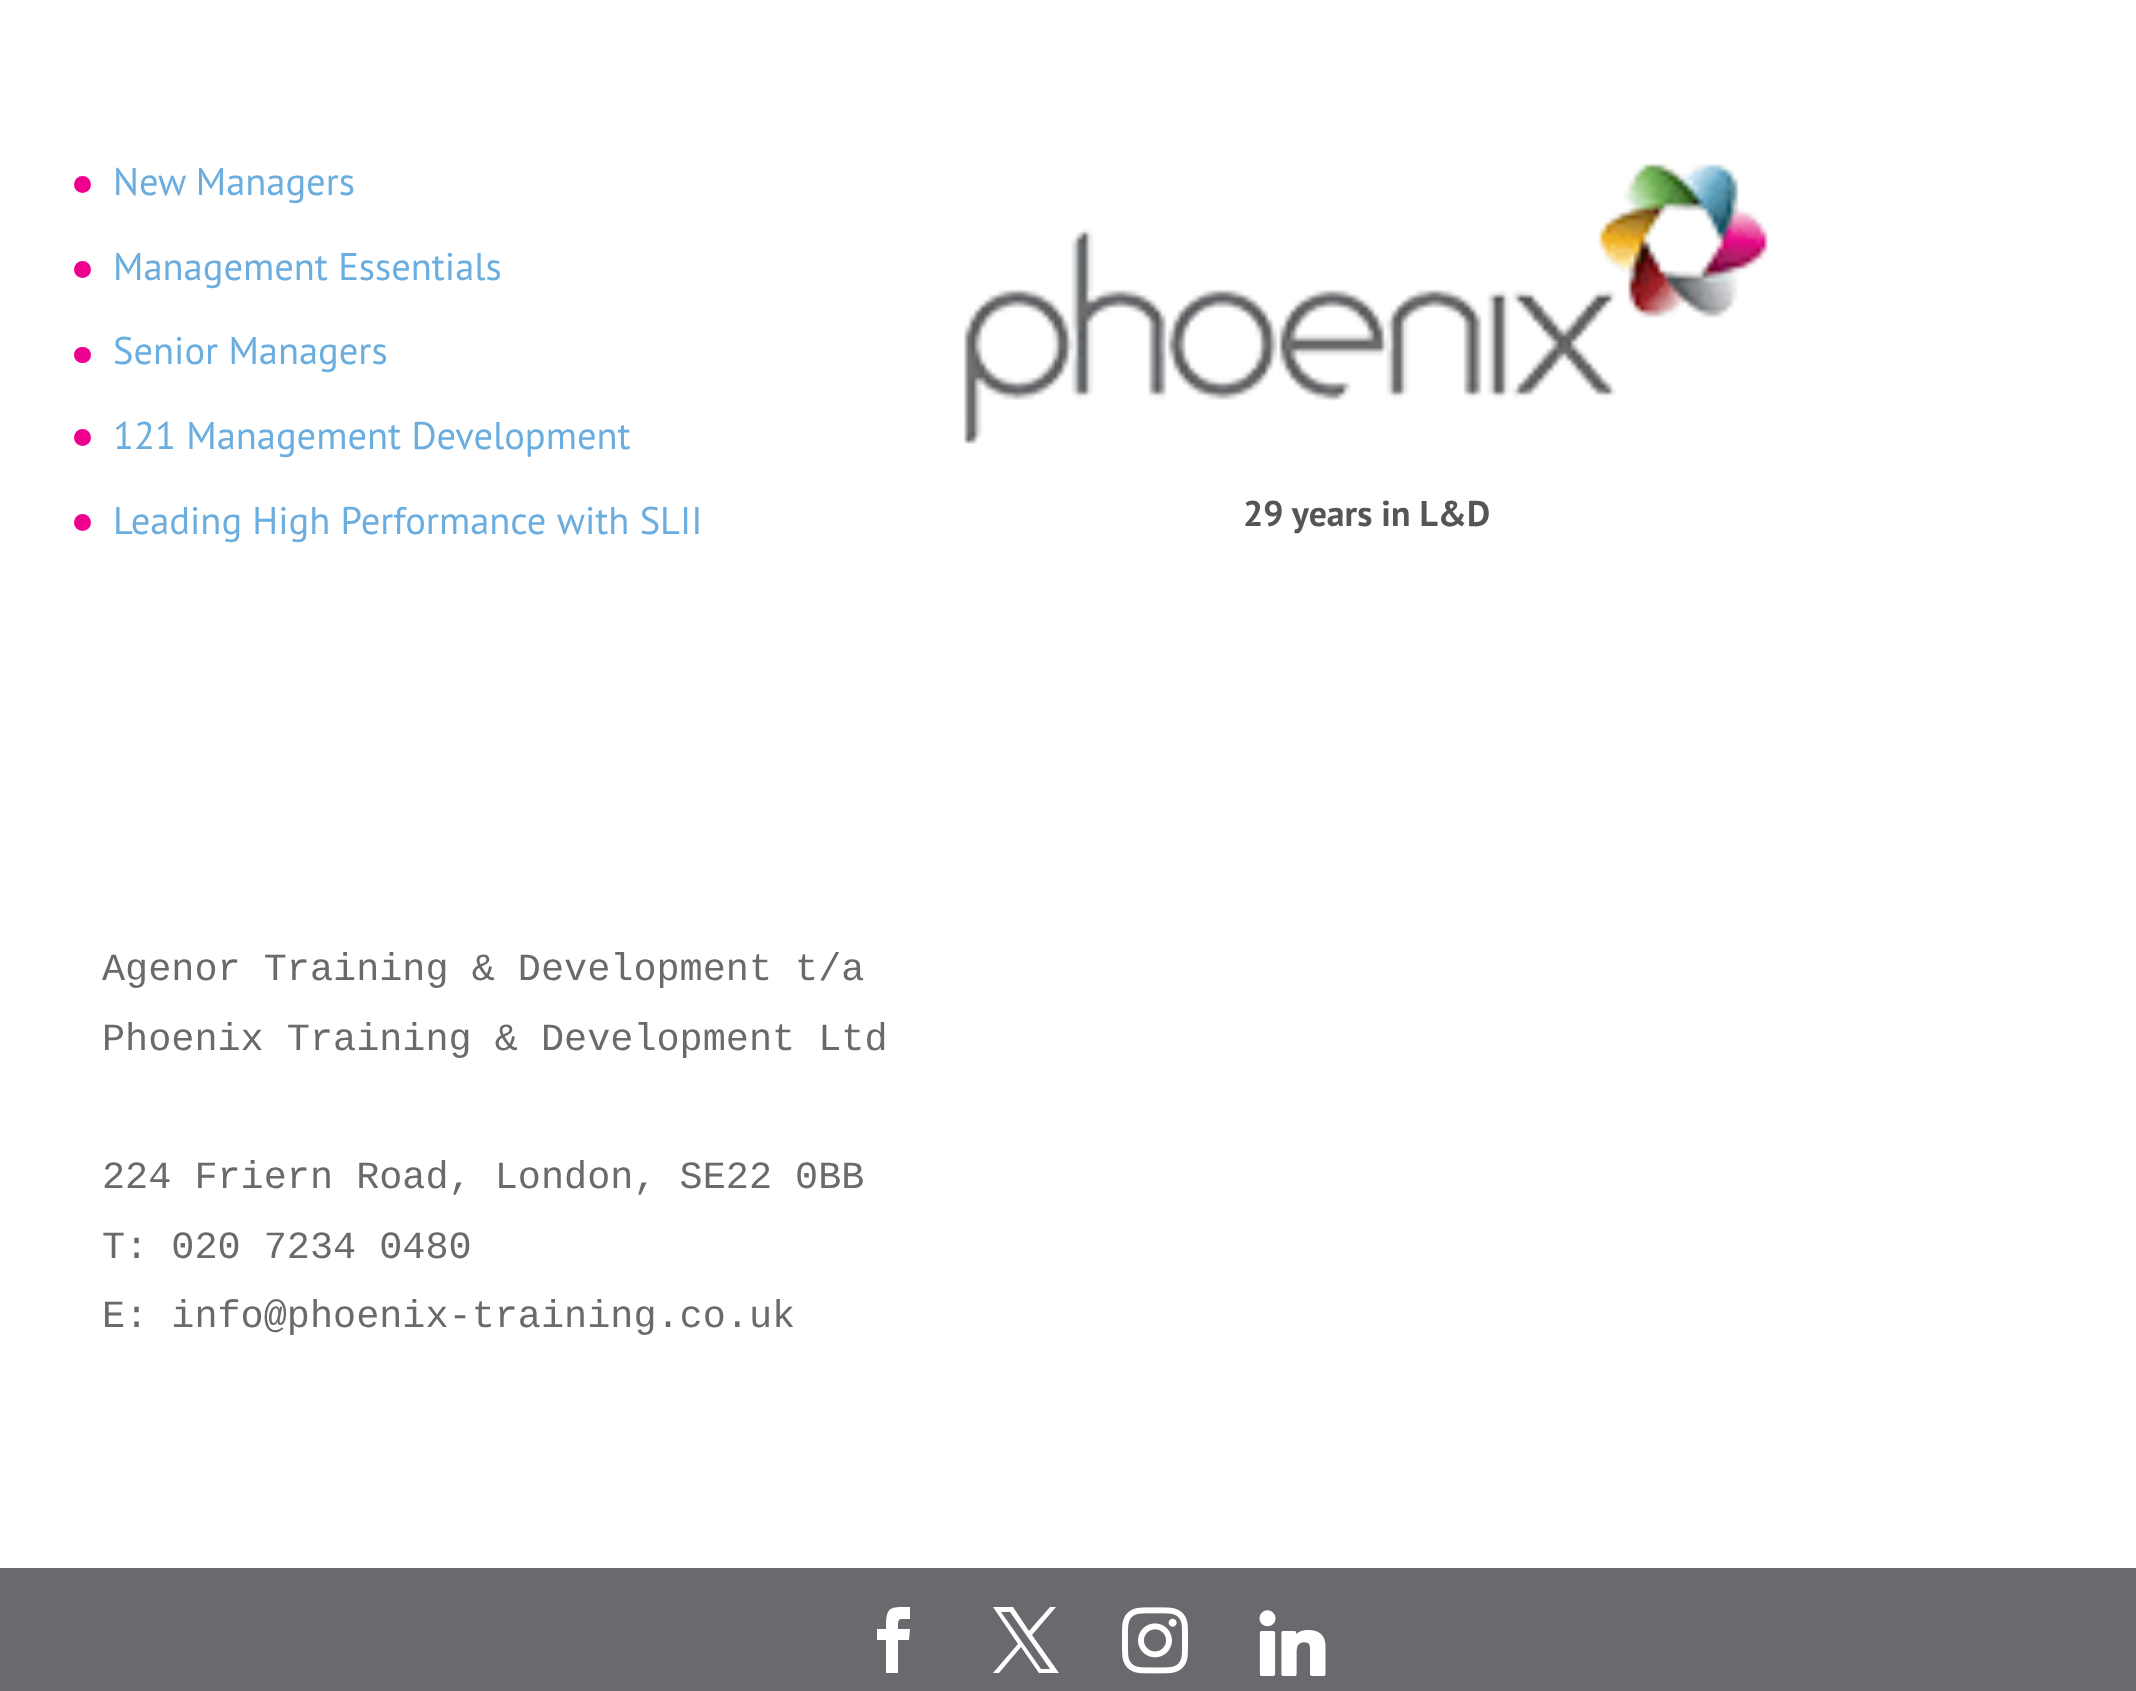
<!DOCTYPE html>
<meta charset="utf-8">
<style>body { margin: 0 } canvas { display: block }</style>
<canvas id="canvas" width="2136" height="1691"></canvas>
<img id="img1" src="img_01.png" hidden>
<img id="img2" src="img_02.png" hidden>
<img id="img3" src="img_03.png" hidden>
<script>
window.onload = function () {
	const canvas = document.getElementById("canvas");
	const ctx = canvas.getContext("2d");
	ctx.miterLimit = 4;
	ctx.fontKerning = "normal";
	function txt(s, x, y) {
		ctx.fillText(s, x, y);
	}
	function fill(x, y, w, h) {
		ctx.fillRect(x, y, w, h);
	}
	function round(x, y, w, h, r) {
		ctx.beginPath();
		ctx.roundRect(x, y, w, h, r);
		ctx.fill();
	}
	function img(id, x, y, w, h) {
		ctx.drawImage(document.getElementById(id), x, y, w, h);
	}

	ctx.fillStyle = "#FFFFFF";
	fill(0, 0, 2136, 1691);
	ctx.fillStyle = "#ED008E";
	ctx.beginPath();
	ctx.arc(82.5, 184.5, 8.5, 0, Math.PI * 2);
	ctx.fill();
	ctx.beginPath();
	ctx.arc(82.5, 269.5, 8.5, 0, Math.PI * 2);
	ctx.fill();
	round(74, 347, 17, 16, 8);
	ctx.beginPath();
	ctx.arc(82.5, 437.5, 8.5, 0, Math.PI * 2);
	ctx.fill();
	ctx.beginPath();
	ctx.arc(82.5, 522.5, 8.5, 0, Math.PI * 2);
	ctx.fill();
	img("img1", 964, 163, 804, 281);
	ctx.fillStyle = "#696A6D";
	fill(0, 1568, 2136, 123);
	ctx.fillStyle = "#FFFFFF";
	ctx.beginPath();
	ctx.moveTo(886, 1673);
	ctx.lineTo(898, 1673);
	ctx.lineTo(898, 1640);
	ctx.lineTo(909, 1640);
	ctx.lineTo(910, 1629);
	ctx.lineTo(898, 1629);
	ctx.bezierCurveTo(898, 1617, 898, 1619, 910, 1619);
	ctx.lineTo(910, 1607);
	ctx.bezierCurveTo(889, 1607, 886, 1606, 886, 1629);
	ctx.lineTo(877, 1629);
	ctx.lineTo(877, 1640);
	ctx.lineTo(886, 1640);
	ctx.closePath();
	ctx.fill();
	ctx.beginPath();
	ctx.moveTo(993, 1607);
	ctx.lineTo(1018, 1644);
	ctx.lineTo(993, 1673);
	ctx.lineTo(999, 1673);
	ctx.lineTo(1021, 1647);
	ctx.lineTo(1039, 1673);
	ctx.lineTo(1059, 1673);
	ctx.lineTo(1032, 1635);
	ctx.lineTo(1056, 1607);
	ctx.lineTo(1050, 1607);
	ctx.lineTo(1029, 1631);
	ctx.lineTo(1013, 1607);
	ctx.closePath();
	ctx.moveTo(1001, 1612);
	ctx.lineTo(1010, 1612);
	ctx.lineTo(1050, 1669);
	ctx.lineTo(1041, 1669);
	ctx.closePath();
	ctx.fill();
	img("img2", 1122, 1607, 66, 67);
	img("img3", 1259, 1610, 67, 66);
	ctx.font = "38.5px PT Sans";
	ctx.fillStyle = "#6CADDF";
	txt("New Managers", 113, 195);
	txt("Management Essentials", 113, 280);
	txt("Senior Managers", 113, 364);
	txt("121 Management Development", 113, 449);
	txt("Leading High Performance with SLII", 113, 534);
	ctx.font = "bold 35.75px PT Sans";
	ctx.fillStyle = "#555555";
	txt("29 years in L&D", 1243, 526);
	ctx.font = "38.5px Liberation Mono";
	ctx.fillStyle = "#696A6D";
	txt("Agenor Training & Development t/a", 102, 980);
	txt("Phoenix Training & Development Ltd", 102, 1050);
	txt("224 Friern Road, London, SE22 0BB", 102, 1188);
	txt("T: 020 7234 0480", 102, 1258);
	txt("E: info@phoenix-training.co.uk", 102, 1327);
};
</script>
